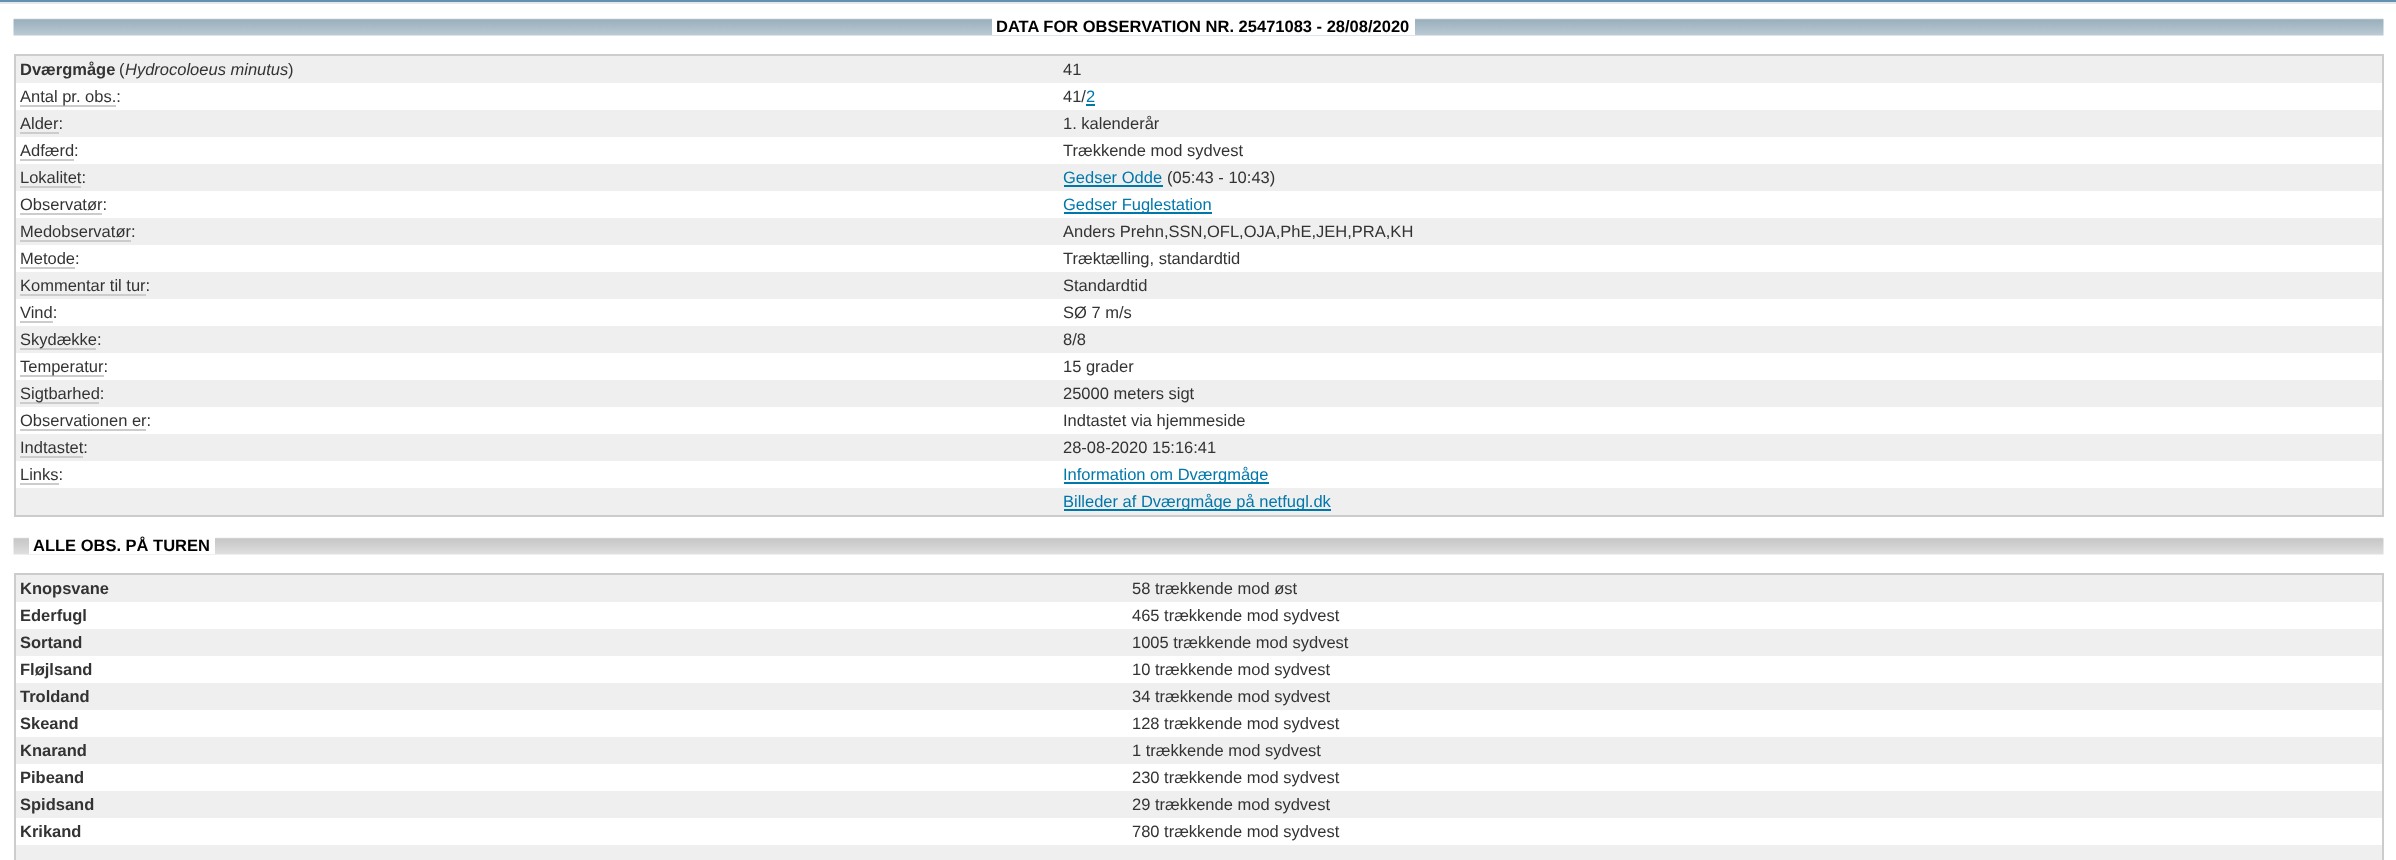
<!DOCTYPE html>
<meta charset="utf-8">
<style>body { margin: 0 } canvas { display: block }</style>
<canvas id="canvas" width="2396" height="860"></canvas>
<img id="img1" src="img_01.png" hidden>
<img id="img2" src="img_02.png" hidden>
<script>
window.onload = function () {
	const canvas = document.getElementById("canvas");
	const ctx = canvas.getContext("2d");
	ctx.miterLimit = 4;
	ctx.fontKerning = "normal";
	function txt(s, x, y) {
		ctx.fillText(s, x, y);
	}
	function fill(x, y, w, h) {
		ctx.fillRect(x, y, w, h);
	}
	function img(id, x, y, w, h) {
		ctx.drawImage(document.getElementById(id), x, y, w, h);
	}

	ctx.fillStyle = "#FFFFFF";
	fill(0, 0, 2396, 860);
	ctx.fillStyle = "#6392B0";
	fill(0, 0, 2396, 2);
	ctx.fillStyle = "#E8E8E8";
	fill(0, 2, 2396, 2);
	img("img1", 13, 18, 2371, 18);
	ctx.fillStyle = "#FFFFFF";
	fill(992, 18, 423, 17);
	ctx.fillStyle = "#CCCCCC";
	fill(14, 54, 2370, 2);
	fill(2382, 54, 2, 462);
	fill(14, 515, 2370, 2);
	fill(14, 54, 2, 462);
	ctx.fillStyle = "#EFEFEF";
	fill(16, 56, 2366, 27);
	ctx.fillStyle = "#CCCCCC";
	fill(20, 105, 96, 2);
	ctx.fillStyle = "#0077AA";
	fill(1086, 104, 9, 2);
	ctx.fillStyle = "#EFEFEF";
	fill(16, 110, 2366, 27);
	ctx.fillStyle = "#CCCCCC";
	fill(20, 132, 39, 2);
	fill(20, 159, 54, 2);
	ctx.fillStyle = "#EFEFEF";
	fill(16, 164, 2366, 27);
	ctx.fillStyle = "#CCCCCC";
	fill(20, 186, 61, 2);
	ctx.fillStyle = "#0077AA";
	fill(1064, 185, 99, 2);
	ctx.fillStyle = "#CCCCCC";
	fill(20, 213, 82, 2);
	ctx.fillStyle = "#0077AA";
	fill(1064, 212, 148, 2);
	ctx.fillStyle = "#EFEFEF";
	fill(16, 218, 2366, 27);
	ctx.fillStyle = "#CCCCCC";
	fill(20, 240, 111, 2);
	fill(20, 267, 55, 2);
	ctx.fillStyle = "#EFEFEF";
	fill(16, 272, 2366, 27);
	ctx.fillStyle = "#CCCCCC";
	fill(20, 294, 126, 2);
	fill(20, 321, 33, 2);
	ctx.fillStyle = "#EFEFEF";
	fill(16, 326, 2366, 27);
	ctx.fillStyle = "#CCCCCC";
	fill(20, 348, 76, 2);
	fill(20, 375, 84, 2);
	ctx.fillStyle = "#EFEFEF";
	fill(16, 380, 2366, 27);
	ctx.fillStyle = "#CCCCCC";
	fill(20, 402, 79, 2);
	fill(20, 429, 126, 2);
	ctx.fillStyle = "#EFEFEF";
	fill(16, 434, 2366, 27);
	ctx.fillStyle = "#CCCCCC";
	fill(20, 456, 63, 2);
	fill(20, 483, 39, 2);
	ctx.fillStyle = "#0077AA";
	fill(1064, 482, 205, 2);
	ctx.fillStyle = "#EFEFEF";
	fill(16, 488, 2366, 27);
	ctx.fillStyle = "#0077AA";
	fill(1064, 509, 267, 2);
	img("img2", 13, 537, 2371, 18);
	ctx.fillStyle = "#FFFFFF";
	fill(29, 537, 186, 17);
	ctx.fillStyle = "#CCCCCC";
	fill(14, 573, 2370, 2);
	fill(2382, 573, 2, 287);
	fill(14, 573, 2, 287);
	ctx.fillStyle = "#EFEFEF";
	fill(16, 575, 2366, 27);
	fill(16, 629, 2366, 27);
	fill(16, 683, 2366, 27);
	fill(16, 737, 2366, 27);
	fill(16, 791, 2366, 27);
	fill(16, 845, 2366, 15);
	ctx.font = "bold 16.5px Liberation Sans";
	ctx.fillStyle = "#000000";
	txt("DATA FOR OBSERVATION NR. 25471083 - 28/08/2020", 996, 32);
	ctx.fillStyle = "#333333";
	txt("Dværgmåge", 20, 75);
	ctx.font = "16.5px Liberation Sans";
	txt("(", 119, 75);
	ctx.font = "italic 16.5px Liberation Sans";
	txt("Hydrocoloeus minutus", 125, 75);
	ctx.font = "16.5px Liberation Sans";
	txt(")", 288, 75);
	txt("41", 1063, 75);
	txt("Antal pr. obs.:", 20, 102);
	txt("41/", 1063, 102);
	ctx.fillStyle = "#0077AA";
	txt("2", 1086, 102);
	ctx.fillStyle = "#333333";
	txt("Alder:", 20, 129);
	txt("1. kalenderår", 1063, 129);
	txt("Adfærd:", 20, 156);
	txt("Trækkende mod sydvest", 1063, 156);
	txt("Lokalitet:", 20, 183);
	ctx.fillStyle = "#0077AA";
	txt("Gedser Odde", 1063, 183);
	ctx.fillStyle = "#333333";
	txt("(05:43 - 10:43)", 1167, 183);
	txt("Observatør:", 20, 210);
	ctx.fillStyle = "#0077AA";
	txt("Gedser Fuglestation", 1063, 210);
	ctx.fillStyle = "#333333";
	txt("Medobservatør:", 20, 237);
	txt("Anders Prehn,SSN,OFL,OJA,PhE,JEH,PRA,KH", 1063, 237);
	txt("Metode:", 20, 264);
	txt("Træktælling, standardtid", 1063, 264);
	txt("Kommentar til tur:", 20, 291);
	txt("Standardtid", 1063, 291);
	txt("Vind:", 20, 318);
	txt("SØ 7 m/s", 1063, 318);
	txt("Skydække:", 20, 345);
	txt("8/8", 1063, 345);
	txt("Temperatur:", 20, 372);
	txt("15 grader", 1063, 372);
	txt("Sigtbarhed:", 20, 399);
	txt("25000 meters sigt", 1063, 399);
	txt("Observationen er:", 20, 426);
	txt("Indtastet via hjemmeside", 1063, 426);
	txt("Indtastet:", 20, 453);
	txt("28-08-2020 15:16:41", 1063, 453);
	txt("Links:", 20, 480);
	ctx.fillStyle = "#0077AA";
	txt("Information om Dværgmåge", 1063, 480);
	txt("Billeder af Dværgmåge på netfugl.dk", 1063, 507);
	ctx.font = "bold 16.5px Liberation Sans";
	ctx.fillStyle = "#000000";
	txt("ALLE OBS. PÅ TUREN", 33, 551);
	ctx.fillStyle = "#333333";
	txt("Knopsvane", 20, 594);
	ctx.font = "16.5px Liberation Sans";
	txt("58 trækkende mod øst", 1132, 594);
	ctx.font = "bold 16.5px Liberation Sans";
	txt("Ederfugl", 20, 621);
	ctx.font = "16.5px Liberation Sans";
	txt("465 trækkende mod sydvest", 1132, 621);
	ctx.font = "bold 16.5px Liberation Sans";
	txt("Sortand", 20, 648);
	ctx.font = "16.5px Liberation Sans";
	txt("1005 trækkende mod sydvest", 1132, 648);
	ctx.font = "bold 16.5px Liberation Sans";
	txt("Fløjlsand", 20, 675);
	ctx.font = "16.5px Liberation Sans";
	txt("10 trækkende mod sydvest", 1132, 675);
	ctx.font = "bold 16.5px Liberation Sans";
	txt("Troldand", 20, 702);
	ctx.font = "16.5px Liberation Sans";
	txt("34 trækkende mod sydvest", 1132, 702);
	ctx.font = "bold 16.5px Liberation Sans";
	txt("Skeand", 20, 729);
	ctx.font = "16.5px Liberation Sans";
	txt("128 trækkende mod sydvest", 1132, 729);
	ctx.font = "bold 16.5px Liberation Sans";
	txt("Knarand", 20, 756);
	ctx.font = "16.5px Liberation Sans";
	txt("1 trækkende mod sydvest", 1132, 756);
	ctx.font = "bold 16.5px Liberation Sans";
	txt("Pibeand", 20, 783);
	ctx.font = "16.5px Liberation Sans";
	txt("230 trækkende mod sydvest", 1132, 783);
	ctx.font = "bold 16.5px Liberation Sans";
	txt("Spidsand", 20, 810);
	ctx.font = "16.5px Liberation Sans";
	txt("29 trækkende mod sydvest", 1132, 810);
	ctx.font = "bold 16.5px Liberation Sans";
	txt("Krikand", 20, 837);
	ctx.font = "16.5px Liberation Sans";
	txt("780 trækkende mod sydvest", 1132, 837);
};
</script>
